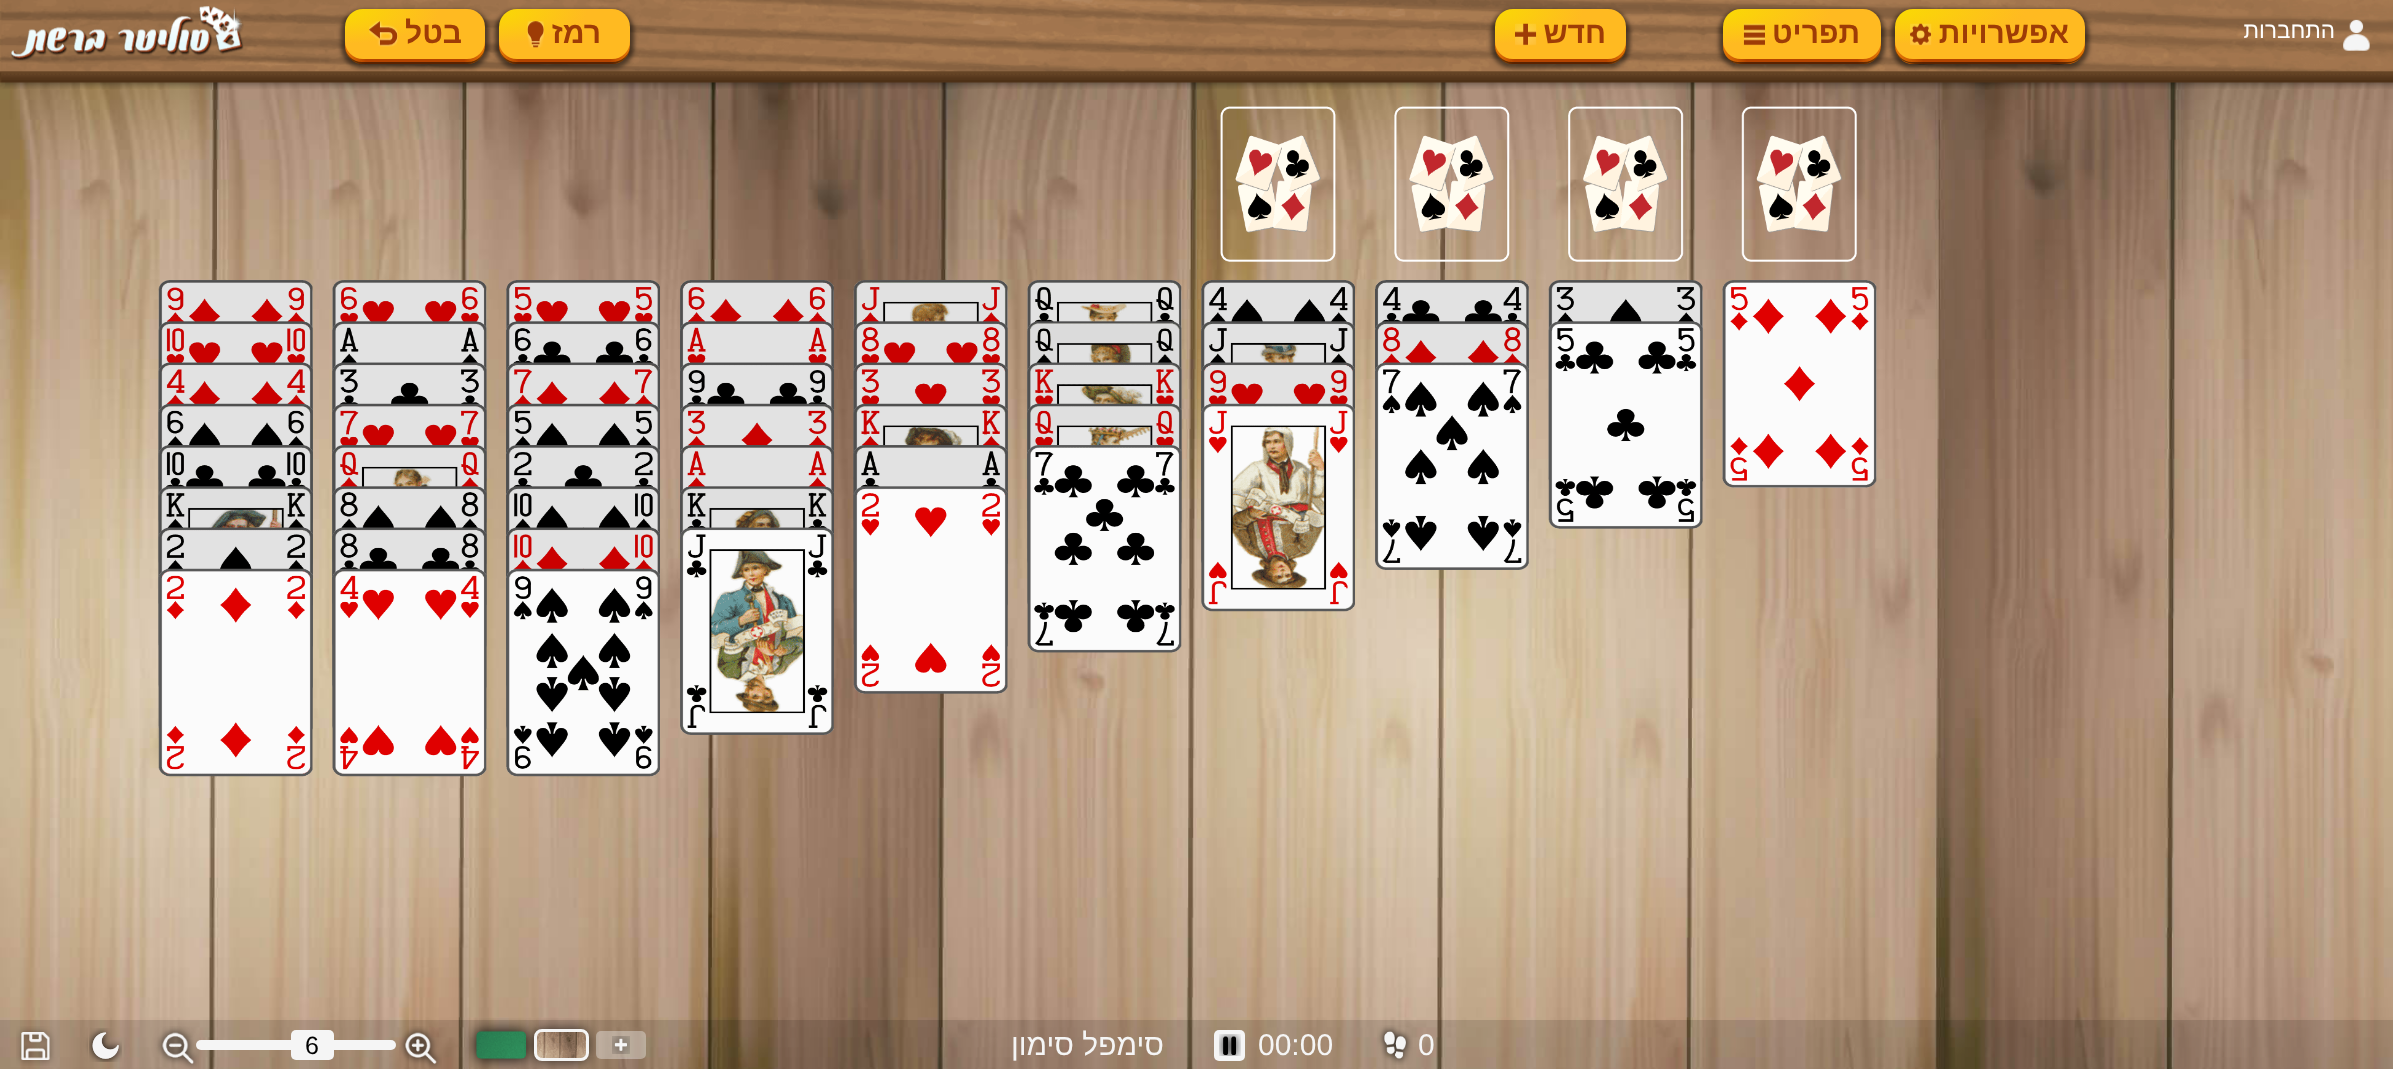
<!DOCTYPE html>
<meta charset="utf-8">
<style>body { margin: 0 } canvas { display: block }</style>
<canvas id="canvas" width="2393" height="1069"></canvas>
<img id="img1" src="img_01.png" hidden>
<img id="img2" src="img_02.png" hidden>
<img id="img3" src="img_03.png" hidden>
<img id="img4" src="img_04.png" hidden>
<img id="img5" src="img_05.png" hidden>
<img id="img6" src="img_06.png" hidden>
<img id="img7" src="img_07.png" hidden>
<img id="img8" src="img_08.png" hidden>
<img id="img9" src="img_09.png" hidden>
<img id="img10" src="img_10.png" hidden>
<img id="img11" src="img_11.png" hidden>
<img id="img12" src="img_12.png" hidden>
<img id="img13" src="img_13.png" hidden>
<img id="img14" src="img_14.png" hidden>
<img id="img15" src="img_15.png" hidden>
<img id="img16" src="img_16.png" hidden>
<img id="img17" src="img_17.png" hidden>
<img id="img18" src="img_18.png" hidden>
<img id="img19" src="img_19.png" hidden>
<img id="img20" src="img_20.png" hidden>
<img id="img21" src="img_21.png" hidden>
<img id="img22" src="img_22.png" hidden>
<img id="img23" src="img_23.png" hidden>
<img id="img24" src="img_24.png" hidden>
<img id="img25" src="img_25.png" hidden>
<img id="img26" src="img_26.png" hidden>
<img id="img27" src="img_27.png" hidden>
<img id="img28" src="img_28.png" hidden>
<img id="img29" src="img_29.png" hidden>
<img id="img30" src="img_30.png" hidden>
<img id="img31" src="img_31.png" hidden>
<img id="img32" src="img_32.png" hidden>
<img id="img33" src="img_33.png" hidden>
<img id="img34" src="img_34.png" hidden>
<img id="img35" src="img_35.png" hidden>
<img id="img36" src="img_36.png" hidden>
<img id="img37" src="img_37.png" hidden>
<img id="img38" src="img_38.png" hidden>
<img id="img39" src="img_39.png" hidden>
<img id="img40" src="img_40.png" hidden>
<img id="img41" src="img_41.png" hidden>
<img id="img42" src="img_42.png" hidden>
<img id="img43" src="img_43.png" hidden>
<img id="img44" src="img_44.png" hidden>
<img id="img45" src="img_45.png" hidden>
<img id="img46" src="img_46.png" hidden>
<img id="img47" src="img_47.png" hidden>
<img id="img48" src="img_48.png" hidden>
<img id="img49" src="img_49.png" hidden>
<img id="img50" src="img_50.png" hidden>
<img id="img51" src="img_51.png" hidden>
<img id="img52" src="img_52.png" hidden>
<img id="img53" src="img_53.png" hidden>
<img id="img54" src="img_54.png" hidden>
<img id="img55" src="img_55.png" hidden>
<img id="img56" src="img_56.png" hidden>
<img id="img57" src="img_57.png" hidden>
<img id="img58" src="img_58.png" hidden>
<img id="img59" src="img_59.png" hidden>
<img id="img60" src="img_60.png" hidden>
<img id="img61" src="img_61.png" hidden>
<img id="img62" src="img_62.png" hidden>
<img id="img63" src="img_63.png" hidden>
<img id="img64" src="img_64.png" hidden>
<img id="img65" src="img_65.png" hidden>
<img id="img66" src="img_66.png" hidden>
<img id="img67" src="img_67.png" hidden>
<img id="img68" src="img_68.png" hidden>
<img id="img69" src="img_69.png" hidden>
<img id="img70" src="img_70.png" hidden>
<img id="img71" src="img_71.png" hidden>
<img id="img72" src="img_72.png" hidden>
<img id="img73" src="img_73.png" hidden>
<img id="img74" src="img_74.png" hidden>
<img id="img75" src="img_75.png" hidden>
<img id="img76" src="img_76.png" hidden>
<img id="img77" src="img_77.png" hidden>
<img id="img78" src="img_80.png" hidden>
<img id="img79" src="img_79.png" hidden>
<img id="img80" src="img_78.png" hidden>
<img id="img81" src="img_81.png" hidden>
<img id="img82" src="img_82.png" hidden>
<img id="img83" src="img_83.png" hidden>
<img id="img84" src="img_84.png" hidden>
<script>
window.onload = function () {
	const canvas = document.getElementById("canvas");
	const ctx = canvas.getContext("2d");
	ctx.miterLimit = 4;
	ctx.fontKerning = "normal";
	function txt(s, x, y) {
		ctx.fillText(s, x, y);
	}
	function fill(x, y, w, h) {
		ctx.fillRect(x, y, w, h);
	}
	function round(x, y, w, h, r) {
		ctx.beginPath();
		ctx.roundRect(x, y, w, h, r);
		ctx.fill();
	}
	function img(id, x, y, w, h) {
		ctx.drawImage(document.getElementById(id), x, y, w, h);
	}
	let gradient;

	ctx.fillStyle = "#FFFFFF";
	fill(0, 0, 2393, 1069);
	img("img1", 0, 0, 2393, 1069);
	img("img2", 0, 0, 2393, 89);
	img("img3", 2343, 19, 27, 32);
	ctx.fillStyle = "rgba(0, 0, 0, 0.5)";
	ctx.filter = "blur(2px)";
	ctx.beginPath();
	ctx.roundRect(1891, 10, 198, 58, 21);
	ctx.fill();
	ctx.filter = "none";
	gradient = ctx.createLinearGradient(1895, 39, 2085, 39);
	gradient.addColorStop(0, "#E77A06");
	gradient.addColorStop(0.15, "#B44400");
	gradient.addColorStop(0.85, "#B44400");
	gradient.addColorStop(1, "#E77A06");
	ctx.fillStyle = gradient;
	round(1895, 14, 190, 50, 18);
	ctx.fillStyle = "rgba(0, 0, 0, 0.5)";
	ctx.beginPath();
	ctx.moveTo(1895, 45);
	ctx.bezierCurveTo(1895, 69, 1923, 64, 1939, 64);
	ctx.lineTo(2041, 64);
	ctx.bezierCurveTo(2057, 64, 2085, 69, 2085, 45);
	ctx.bezierCurveTo(2085, 55, 2077, 62, 2068, 62);
	ctx.lineTo(1912, 62);
	ctx.bezierCurveTo(1903, 62, 1895, 55, 1895, 45);
	ctx.closePath();
	ctx.fill();
	gradient = ctx.createRadialGradient(1880, 47.61, 0, 1880, 47.61, 290);
	gradient.addColorStop(0, "#FEF88C");
	gradient.addColorStop(0.01, "#FEF34A");
	gradient.addColorStop(0.02, "#F9DC01");
	gradient.addColorStop(0.5, "#FFBA21");
	ctx.fillStyle = gradient;
	ctx.beginPath();
	ctx.roundRect(1895, 9, 190, 50, 18);
	ctx.save();
	ctx.clip();
	ctx.scale(1, 67 / 290);
	ctx.fillRect(0, 0, 2393, 4628);
	ctx.restore();
	img("img4", 1910, 23, 22, 23);
	ctx.fillStyle = "rgba(0, 0, 0, 0.5)";
	ctx.filter = "blur(2px)";
	ctx.beginPath();
	ctx.roundRect(1719, 10, 166, 58, 21);
	ctx.fill();
	ctx.filter = "none";
	gradient = ctx.createLinearGradient(1723, 39, 1881, 39);
	gradient.addColorStop(0, "#E77A06");
	gradient.addColorStop(0.15, "#B44400");
	gradient.addColorStop(0.85, "#B44400");
	gradient.addColorStop(1, "#E77A06");
	ctx.fillStyle = gradient;
	round(1723, 14, 158, 50, 18);
	ctx.fillStyle = "rgba(0, 0, 0, 0.5)";
	ctx.beginPath();
	ctx.moveTo(1726, 56);
	ctx.bezierCurveTo(1729, 61, 1735, 64, 1741, 64);
	ctx.lineTo(1863, 64);
	ctx.bezierCurveTo(1873, 64, 1881, 56, 1881, 46);
	ctx.lineTo(1881, 45);
	ctx.bezierCurveTo(1881, 55, 1873, 62, 1864, 62);
	ctx.lineTo(1740, 62);
	ctx.bezierCurveTo(1734, 62, 1729, 60, 1726, 56);
	ctx.closePath();
	ctx.fill();
	gradient = ctx.createRadialGradient(1708, 40.39, 0, 1708, 40.39, 246);
	gradient.addColorStop(0, "#FEF88C");
	gradient.addColorStop(0.01, "#FEF34A");
	gradient.addColorStop(0.02, "#F9DC01");
	gradient.addColorStop(0.5, "#FFBA21");
	ctx.fillStyle = gradient;
	ctx.beginPath();
	ctx.roundRect(1723, 9, 158, 50, 18);
	ctx.save();
	ctx.clip();
	ctx.scale(1, 67 / 246);
	ctx.fillRect(0, 0, 2393, 3925);
	ctx.restore();
	img("img5", 1743, 23, 22, 23);
	ctx.fillStyle = "rgba(0, 0, 0, 0.5)";
	ctx.filter = "blur(2px)";
	ctx.beginPath();
	ctx.roundRect(1491, 10, 139, 58, 21);
	ctx.fill();
	ctx.filter = "none";
	gradient = ctx.createLinearGradient(1495, 39, 1626, 39);
	gradient.addColorStop(0, "#E77A06");
	gradient.addColorStop(0.15, "#B44400");
	gradient.addColorStop(0.85, "#B44400");
	gradient.addColorStop(1, "#E77A06");
	ctx.fillStyle = gradient;
	round(1495, 14, 131, 50, 18);
	ctx.fillStyle = "rgba(0, 0, 0, 0.5)";
	ctx.beginPath();
	ctx.moveTo(1495, 45);
	ctx.lineTo(1495, 46);
	ctx.bezierCurveTo(1495, 56, 1503, 64, 1513, 64);
	ctx.lineTo(1608, 64);
	ctx.bezierCurveTo(1618, 64, 1626, 56, 1626, 46);
	ctx.lineTo(1626, 45);
	ctx.bezierCurveTo(1626, 55, 1618, 62, 1609, 62);
	ctx.lineTo(1512, 62);
	ctx.bezierCurveTo(1503, 62, 1495, 55, 1495, 45);
	ctx.closePath();
	ctx.fill();
	gradient = ctx.createRadialGradient(1480, 33.99, 0, 1480, 33.99, 207);
	gradient.addColorStop(0, "#FEF88C");
	gradient.addColorStop(0.01, "#FEF34A");
	gradient.addColorStop(0.02, "#F9DC01");
	gradient.addColorStop(0.5, "#FFBA21");
	ctx.fillStyle = gradient;
	ctx.beginPath();
	ctx.roundRect(1495, 9, 131, 50, 18);
	ctx.save();
	ctx.clip();
	ctx.scale(1, 67 / 207);
	ctx.fillRect(0, 0, 2393, 3303);
	ctx.restore();
	img("img6", 1515, 23, 22, 23);
	ctx.fillStyle = "rgba(0, 0, 0, 0.5)";
	ctx.filter = "blur(2px)";
	ctx.beginPath();
	ctx.roundRect(495, 10, 139, 58, 21);
	ctx.fill();
	ctx.filter = "none";
	gradient = ctx.createLinearGradient(499, 39, 630, 39);
	gradient.addColorStop(0, "#E77A06");
	gradient.addColorStop(0.15, "#B44400");
	gradient.addColorStop(0.85, "#B44400");
	gradient.addColorStop(1, "#E77A06");
	ctx.fillStyle = gradient;
	round(499, 14, 131, 50, 18);
	ctx.fillStyle = "rgba(0, 0, 0, 0.5)";
	ctx.beginPath();
	ctx.moveTo(499, 45);
	ctx.lineTo(499, 46);
	ctx.bezierCurveTo(499, 56, 507, 64, 517, 64);
	ctx.lineTo(612, 64);
	ctx.bezierCurveTo(622, 64, 630, 56, 630, 46);
	ctx.lineTo(630, 45);
	ctx.bezierCurveTo(630, 55, 622, 62, 612, 62);
	ctx.lineTo(516, 62);
	ctx.bezierCurveTo(507, 62, 499, 55, 499, 45);
	ctx.closePath();
	ctx.fill();
	gradient = ctx.createRadialGradient(484, 33.99, 0, 484, 33.99, 207);
	gradient.addColorStop(0, "#FEF88C");
	gradient.addColorStop(0.01, "#FEF34A");
	gradient.addColorStop(0.02, "#F9DC01");
	gradient.addColorStop(0.5, "#FFBA21");
	ctx.fillStyle = gradient;
	ctx.beginPath();
	ctx.roundRect(499, 9, 131, 50, 18);
	ctx.save();
	ctx.clip();
	ctx.scale(1, 67 / 207);
	ctx.fillRect(0, 0, 2393, 3303);
	ctx.restore();
	img("img7", 527, 21, 17, 27);
	ctx.fillStyle = "rgba(0, 0, 0, 0.5)";
	ctx.filter = "blur(2px)";
	ctx.beginPath();
	ctx.roundRect(341, 10, 148, 58, 21);
	ctx.fill();
	ctx.filter = "none";
	gradient = ctx.createLinearGradient(345, 39, 485, 39);
	gradient.addColorStop(0, "#E77A06");
	gradient.addColorStop(0.15, "#B44400");
	gradient.addColorStop(0.85, "#B44400");
	gradient.addColorStop(1, "#E77A06");
	ctx.fillStyle = gradient;
	round(345, 14, 140, 50, 18);
	ctx.fillStyle = "rgba(0, 0, 0, 0.5)";
	ctx.beginPath();
	ctx.moveTo(345, 45);
	ctx.lineTo(345, 46);
	ctx.bezierCurveTo(345, 56, 353, 64, 363, 64);
	ctx.lineTo(467, 64);
	ctx.bezierCurveTo(477, 64, 485, 56, 485, 46);
	ctx.lineTo(485, 45);
	ctx.bezierCurveTo(485, 55, 477, 62, 468, 62);
	ctx.lineTo(362, 62);
	ctx.bezierCurveTo(353, 62, 345, 55, 345, 45);
	ctx.closePath();
	ctx.fill();
	gradient = ctx.createRadialGradient(330, 35.96, 0, 330, 35.96, 219);
	gradient.addColorStop(0, "#FEF88C");
	gradient.addColorStop(0.01, "#FEF34A");
	gradient.addColorStop(0.02, "#F9DC01");
	gradient.addColorStop(0.5, "#FFBA21");
	ctx.fillStyle = gradient;
	ctx.beginPath();
	ctx.roundRect(345, 9, 140, 50, 18);
	ctx.save();
	ctx.clip();
	ctx.scale(1, 67 / 219);
	ctx.fillRect(0, 0, 2393, 3495);
	ctx.restore();
	img("img8", 369, 21, 29, 26);
	img("img9", 11, 6, 233, 55);
	img("img10", 1741, 106, 116, 156);
	img("img11", 1568, 106, 116, 156);
	img("img12", 1394, 106, 116, 156);
	img("img13", 1220, 106, 116, 156);
	img("img14", 158, 280, 155, 200);
	img("img15", 332, 280, 155, 199);
	img("img16", 158, 280, 155, 202);
	img("img17", 506, 280, 150, 198);
	img("img18", 332, 280, 155, 202);
	img("img19", 680, 280, 154, 200);
	img("img20", 506, 280, 154, 201);
	img("img21", 853, 280, 155, 200);
	img("img22", 680, 280, 154, 202);
	img("img23", 1027, 280, 155, 199);
	img("img24", 853, 280, 155, 202);
	img("img25", 1201, 280, 152, 198);
	img("img26", 1027, 280, 155, 202);
	img("img27", 1375, 280, 154, 200);
	img("img28", 1201, 280, 154, 201);
	img("img29", 1548, 280, 155, 200);
	img("img30", 1375, 280, 154, 202);
	img("img31", 1722, 280, 155, 208);
	img("img32", 1548, 280, 155, 207);
	img("img33", 1722, 280, 155, 208);
	img("img34", 1548, 321, 155, 208);
	img("img35", 1375, 321, 154, 206);
	img("img36", 1201, 321, 154, 201);
	img("img37", 1027, 321, 155, 203);
	img("img38", 853, 321, 155, 203);
	img("img39", 680, 321, 154, 203);
	img("img40", 506, 321, 154, 201);
	img("img41", 332, 321, 155, 203);
	img("img42", 158, 321, 155, 203);
	img("img43", 1375, 362, 154, 208);
	img("img44", 1201, 362, 154, 201);
	img("img45", 1027, 362, 155, 203);
	img("img46", 853, 362, 155, 203);
	img("img47", 680, 362, 154, 203);
	img("img48", 506, 362, 154, 201);
	img("img49", 332, 362, 155, 203);
	img("img50", 158, 362, 155, 203);
	img("img51", 1201, 403, 154, 209);
	img("img52", 1027, 403, 155, 208);
	img("img53", 853, 403, 155, 203);
	img("img54", 680, 403, 154, 203);
	img("img55", 506, 403, 154, 202);
	img("img56", 332, 403, 155, 203);
	img("img57", 158, 403, 155, 203);
	img("img58", 1027, 445, 155, 208);
	img("img59", 853, 445, 155, 202);
	img("img60", 680, 445, 154, 202);
	img("img61", 506, 445, 154, 201);
	img("img62", 332, 445, 155, 202);
	img("img63", 158, 445, 155, 202);
	img("img64", 853, 486, 155, 208);
	img("img65", 680, 486, 154, 203);
	img("img66", 506, 486, 154, 201);
	img("img67", 332, 486, 155, 203);
	img("img68", 158, 486, 155, 203);
	img("img69", 680, 527, 154, 208);
	img("img70", 506, 527, 154, 206);
	img("img71", 332, 527, 155, 203);
	img("img72", 158, 527, 155, 203);
	img("img73", 506, 568, 154, 209);
	img("img74", 332, 568, 155, 209);
	img("img75", 158, 568, 155, 209);
	ctx.fillStyle = "rgba(0, 0, 0, 0.12)";
	fill(0, 1020, 2393, 49);
	img("img76", 1377, 1025, 36, 40);
	ctx.fillStyle = "#F5F5F5";
	round(1214, 1030, 31, 31, 5);
	img("img77", 1219, 1034, 22, 22);
	img("img78", 464, 1018, 73, 51);
	img("img79", 524, 1018, 75, 51);
	ctx.fillStyle = "rgba(245, 245, 245, 0.38)";
	round(596, 1031, 50, 28, 5);
	img("img80", 612, 1036, 18, 18);
	ctx.beginPath();
	ctx.roundRect(535.5, 1030.5, 52, 29, 6.5);
	ctx.strokeStyle = "#F5F5F5";
	ctx.lineWidth = 3;
	ctx.stroke();
	img("img81", 399, 1026, 43, 43);
	img("img82", 124, 1026, 75, 43);
	ctx.fillStyle = "#F5F5F5";
	round(196, 1040, 200, 10, 5);
	round(291, 1030, 43, 30, 5);
	img("img83", 89, 1028, 33, 34);
	img("img84", 16, 1026, 72, 40);
	ctx.direction = "rtl";
	ctx.font = "22.5px Liberation Sans";
	ctx.fillStyle = "#FFFFFF";
	txt("התחברות", 2335, 38);
	ctx.font = "bold 30px Liberation Sans";
	ctx.fillStyle = "#9E3C06";
	txt("אפשרויות", 2069, 43);
	txt("תפריט", 1860, 43);
	txt("חדש", 1606, 43);
	txt("רמז", 601, 43);
	txt("בטל", 462, 43);
	ctx.direction = "ltr";
	ctx.font = "30px Liberation Sans";
	ctx.fillStyle = "#F5F5F5";
	txt("0", 1418, 1055);
	txt("00:00", 1258, 1055);
	ctx.direction = "rtl";
	txt("סימפל סימון", 1164, 1055);
	ctx.direction = "ltr";
	ctx.font = "25px Liberation Sans";
	ctx.fillStyle = "#000000";
	txt("6", 305, 1054);
};
</script>
